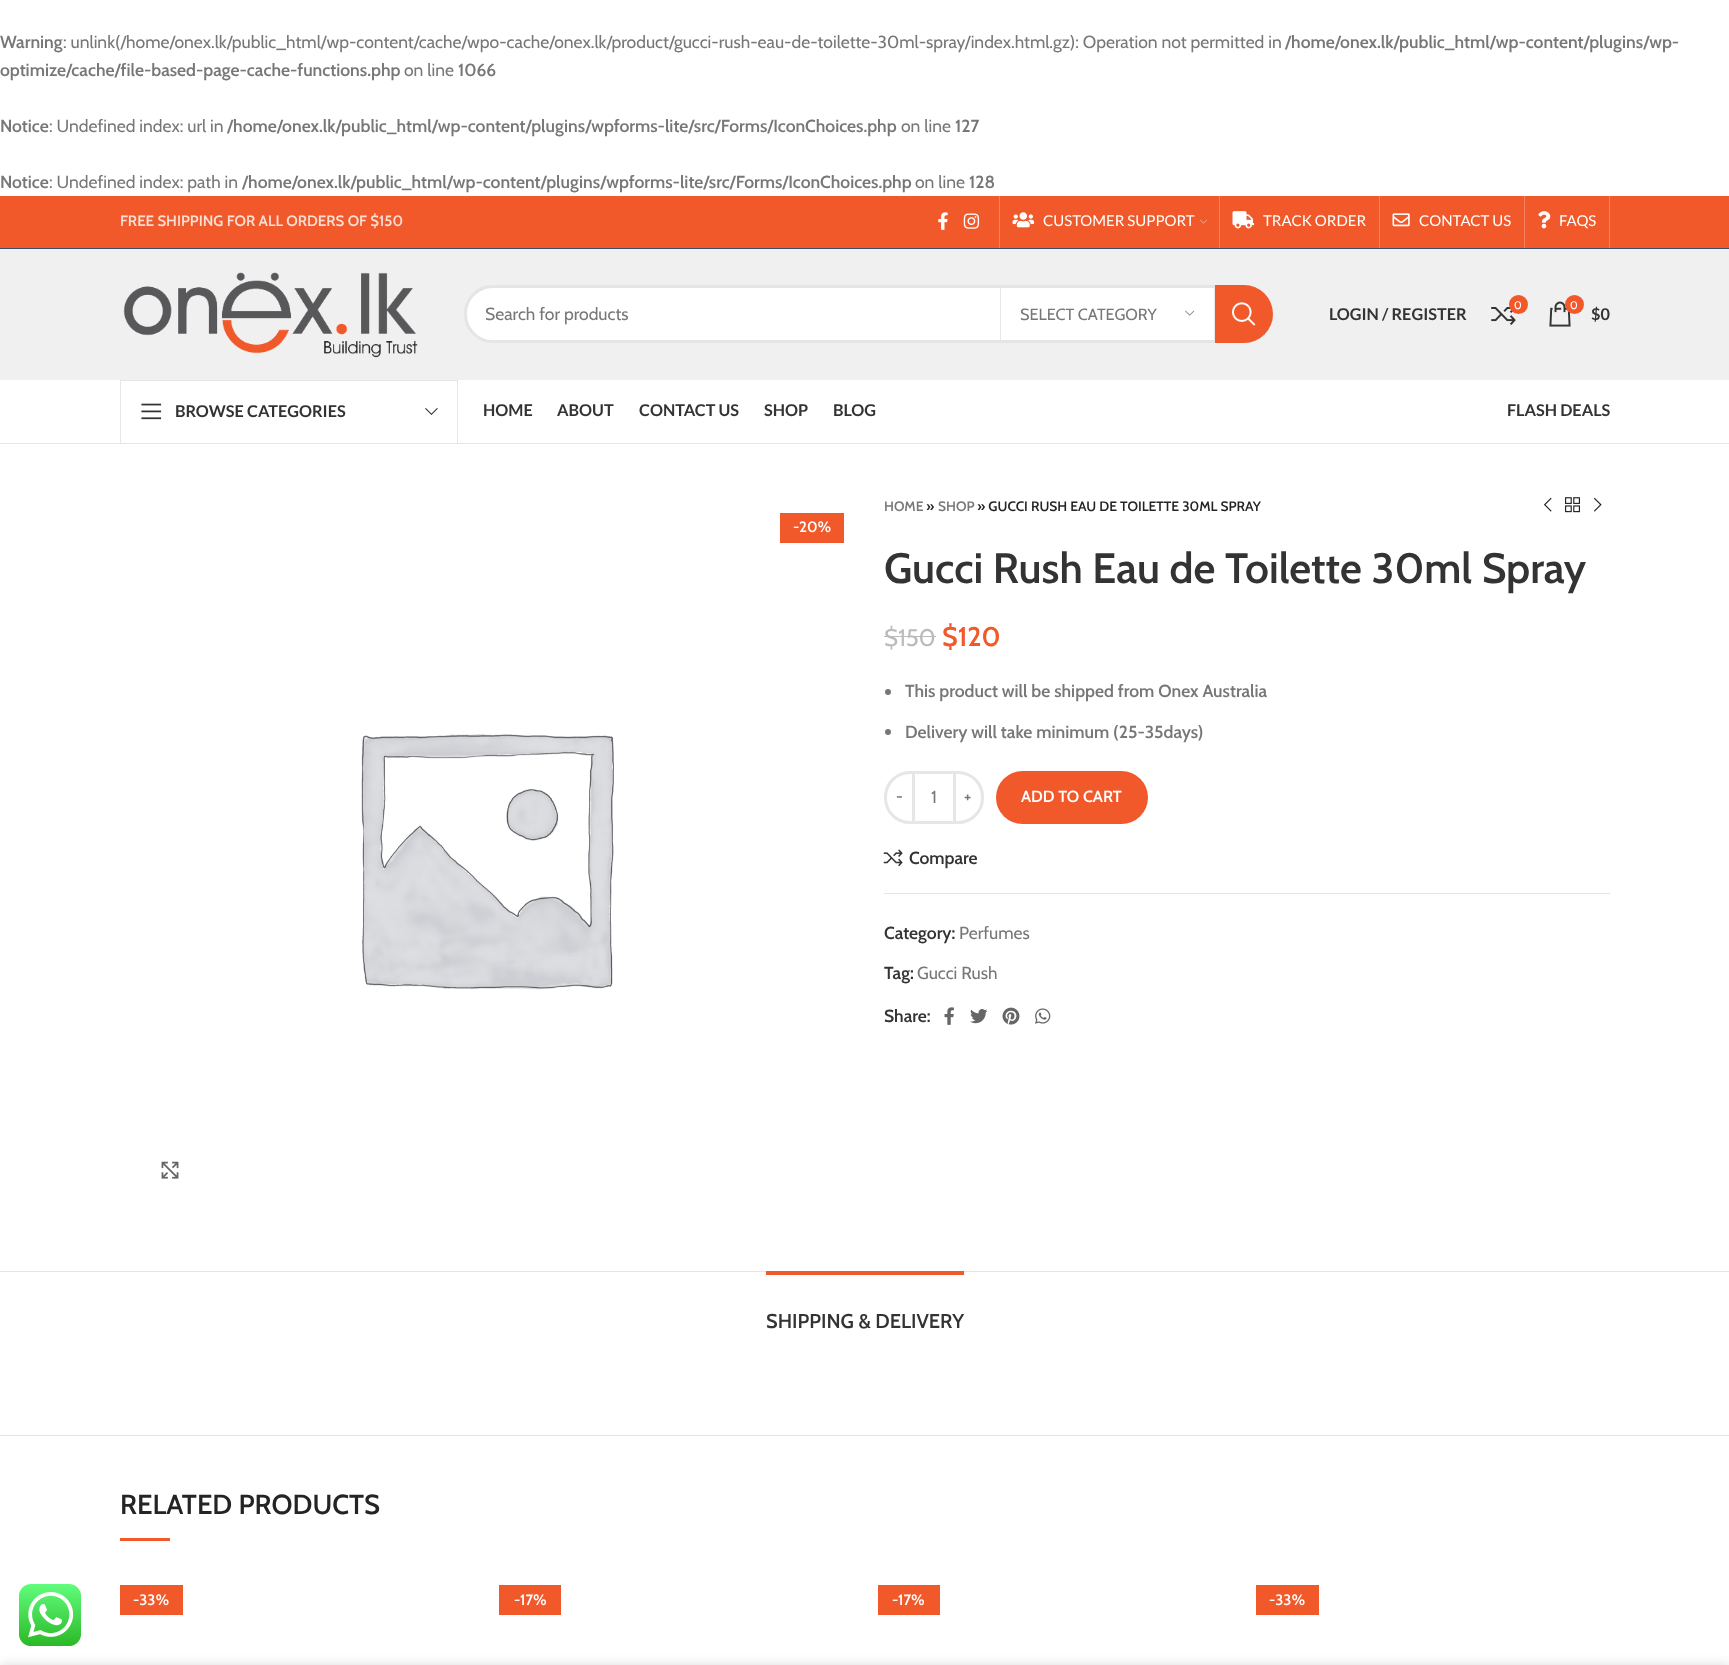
<!DOCTYPE html>
<meta charset="utf-8">
<style>body { margin: 0 } canvas { display: block }</style>
<canvas id="canvas" width="1729" height="1665"></canvas>
<img id="img1" src="img_01.png" hidden>
<img id="img2" src="img_02.png" hidden>
<img id="img3" src="img_03.png" hidden>
<img id="img4" src="img_04.png" hidden>
<img id="img5" src="img_05.png" hidden>
<img id="img6" src="img_06.png" hidden>
<img id="img7" src="img_07.png" hidden>
<img id="img8" src="img_08.png" hidden>
<img id="img9" src="img_09.png" hidden>
<img id="img10" src="img_10.png" hidden>
<img id="img11" src="img_11.png" hidden>
<img id="img12" src="img_12.png" hidden>
<img id="img13" src="img_13.png" hidden>
<img id="img14" src="img_14.png" hidden>
<img id="img15" src="img_15.png" hidden>
<img id="img16" src="img_16.png" hidden>
<img id="img17" src="img_17.png" hidden>
<img id="img18" src="img_18.png" hidden>
<img id="img19" src="img_19.png" hidden>
<img id="img20" src="img_20.png" hidden>
<img id="img21" src="img_21.png" hidden>
<img id="img22" src="img_22.png" hidden>
<img id="img23" src="img_23.png" hidden>
<img id="img24" src="img_24.png" hidden>
<img id="img25" src="img_25.png" hidden>
<script>
window.onload = function () {
	const canvas = document.getElementById("canvas");
	const ctx = canvas.getContext("2d");
	ctx.miterLimit = 4;
	ctx.fontKerning = "normal";
	function txt(s, x, y) {
		ctx.fillText(s, x, y);
	}
	function fill(x, y, w, h) {
		ctx.fillRect(x, y, w, h);
	}
	function round(x, y, w, h, r) {
		ctx.beginPath();
		ctx.roundRect(x, y, w, h, r);
		ctx.fill();
	}
	function img(id, x, y, w, h) {
		ctx.drawImage(document.getElementById(id), x, y, w, h);
	}

	ctx.fillStyle = "#FFFFFF";
	fill(0, 0, 1729, 1665);
	ctx.fillStyle = "#F1592A";
	fill(0, 196, 1729, 52);
	ctx.fillStyle = "#3A4D69";
	fill(0, 248, 1729, 1);
	img("img1", 938, 212, 10, 18);
	img("img2", 963, 213, 17, 16);
	ctx.fillStyle = "#F5835F";
	fill(999, 196, 1, 52);
	img("img3", 1012, 212, 23, 16);
	img("img4", 1200, 219, 7, 5);
	fill(1219, 196, 1, 52);
	img("img5", 1232, 211, 23, 18);
	fill(1379, 196, 1, 52);
	img("img6", 1392, 213, 18, 14);
	fill(1524, 196, 1, 52);
	img("img7", 1538, 211, 13, 18);
	fill(1609, 196, 1, 52);
	ctx.fillStyle = "#F0F0F0";
	fill(0, 249, 1729, 131);
	img("img8", 123, 272, 295, 86);
	ctx.fillStyle = "#FFFFFF";
	round(464, 285, 809, 58, 29);
	ctx.beginPath();
	ctx.roundRect(465.5, 286.5, 806, 55, 27.5);
	ctx.strokeStyle = "rgba(0, 0, 0, 0.1)";
	ctx.lineWidth = 3;
	ctx.stroke();
	ctx.fillStyle = "#E6E6E6";
	fill(1214, 288, 1, 52);
	fill(1000, 288, 1, 52);
	img("img9", 1185, 310, 10, 6);
	ctx.fillStyle = "#F1592A";
	ctx.beginPath();
	ctx.roundRect(1215, 285, 58, 58, [0, 29, 29, 0]);
	ctx.fill();
	img("img10", 1232, 302, 24, 24);
	img("img11", 1491, 304, 25, 21);
	ctx.beginPath();
	ctx.arc(1518.5, 304.5, 9.5, 0, Math.PI * 2);
	ctx.fill();
	img("img12", 1549, 301, 22, 26);
	ctx.beginPath();
	ctx.arc(1574.5, 304.5, 9.5, 0, Math.PI * 2);
	ctx.fill();
	ctx.fillStyle = "#E6E6E6";
	fill(0, 443, 1729, 1);
	ctx.strokeStyle = "#E6E6E6";
	ctx.lineWidth = 1;
	ctx.strokeRect(120.5, 380.5, 337, 63);
	img("img13", 141, 403, 21, 17);
	img("img14", 425, 408, 13, 7);
	ctx.fillStyle = "#F1592A";
	fill(780, 513, 64, 30);
	img("img15", 361, 734, 253, 256);
	img("img16", 161, 1161, 18, 18);
	img("img17", 1543, 497, 9, 15);
	img("img18", 1565, 497, 15, 16);
	img("img19", 1593, 497, 9, 15);
	ctx.fillStyle = "#BBBBBB";
	fill(884, 636, 52, 1);
	ctx.fillStyle = "#777777";
	ctx.beginPath();
	ctx.arc(888, 692, 3, 0, Math.PI * 2);
	ctx.fill();
	ctx.beginPath();
	ctx.arc(888, 732, 3, 0, Math.PI * 2);
	ctx.fill();
	ctx.beginPath();
	ctx.roundRect(885.5, 772.5, 28, 50, [24.5, 0, 0, 24.5]);
	ctx.lineWidth = 3;
	ctx.stroke();
	ctx.fillStyle = "#E6E6E6";
	fill(915, 771, 38, 3);
	fill(915, 821, 38, 3);
	ctx.beginPath();
	ctx.roundRect(954.5, 772.5, 28, 50, [0, 24.5, 24.5, 0]);
	ctx.stroke();
	ctx.fillStyle = "#F1592A";
	round(996, 771, 152, 53, 26.5);
	img("img20", 883, 849, 20, 18);
	ctx.fillStyle = "#E4E4E4";
	fill(884, 893, 726, 1);
	img("img21", 944, 1007, 10, 18);
	img("img22", 970, 1009, 18, 15);
	img("img23", 1002, 1007, 18, 18);
	img("img24", 1035, 1008, 16, 16);
	fill(0, 1271, 1729, 1);
	fill(0, 1435, 1729, 1);
	ctx.fillStyle = "#F1592A";
	fill(766, 1271, 198, 4);
	fill(120, 1538, 50, 3);
	fill(120, 1585, 63, 30);
	fill(499, 1585, 62, 30);
	fill(878, 1585, 62, 30);
	fill(1256, 1585, 63, 30);
	img("img25", 19, 1584, 62, 62);
	ctx.fillStyle = "rgba(0, 0, 0, 0.14)";
	ctx.filter = "blur(5.5px)";
	ctx.beginPath();
	ctx.rect(0, 1665, 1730, 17);
	ctx.fill();
	ctx.filter = "none";
	ctx.font = "600 17.5px Cabin";
	ctx.fillStyle = "#777777";
	txt("Warning", 0, 48);
	ctx.font = "17.5px Cabin";
	txt(": unlink(/home/onex.lk/public_html/wp-content/cache/wpo-cache/onex.lk/product/gucci-rush-eau-de-toilette-30ml-spray/index.html.gz): Operation not permitted in", 63, 48);
	ctx.font = "600 17.5px Cabin";
	txt("/home/onex.lk/public_html/wp-content/plugins/wp-", 1285, 48);
	txt("optimize/cache/file-based-page-cache-functions.php", 0, 76);
	ctx.font = "17.5px Cabin";
	txt("on line", 404, 76);
	ctx.font = "600 17.5px Cabin";
	txt("1066", 458, 76);
	txt("Notice", 0, 132);
	ctx.font = "17.5px Cabin";
	txt(": Undefined index: url in", 49, 132);
	ctx.font = "600 17.5px Cabin";
	txt("/home/onex.lk/public_html/wp-content/plugins/wpforms-lite/src/Forms/IconChoices.php", 227, 132);
	ctx.font = "17.5px Cabin";
	txt("on line", 901, 132);
	ctx.font = "600 17.5px Cabin";
	txt("127", 955, 132);
	txt("Notice", 0, 188);
	ctx.font = "17.5px Cabin";
	txt(": Undefined index: path in", 49, 188);
	ctx.font = "600 17.5px Cabin";
	txt("/home/onex.lk/public_html/wp-content/plugins/wpforms-lite/src/Forms/IconChoices.php", 242, 188);
	ctx.font = "17.5px Cabin";
	txt("on line", 915, 188);
	ctx.font = "600 17.5px Cabin";
	txt("128", 969, 188);
	ctx.font = "600 15px Cabin";
	ctx.fillStyle = "#FCDED4";
	txt("FREE SHIPPING FOR ALL ORDERS OF $150", 120, 226);
	ctx.font = "15px Lato";
	ctx.fillStyle = "#FFFFFF";
	txt("CUSTOMER SUPPORT", 1043, 226);
	txt("TRACK ORDER", 1263, 226);
	txt("CONTACT US", 1419, 226);
	txt("FAQS", 1559, 226);
	ctx.font = "17.5px Cabin";
	ctx.fillStyle = "#777777";
	txt("Search for products", 485, 320);
	ctx.font = "16.25px Cabin";
	txt("SELECT CATEGORY", 1020, 320);
	ctx.font = "bold 16.25px Lato";
	ctx.fillStyle = "#333333";
	txt("LOGIN / REGISTER", 1329, 320);
	ctx.font = "11px Cabin";
	ctx.fillStyle = "#FFFFFF";
	txt("0", 1514, 309);
	txt("0", 1570, 309);
	ctx.font = "bold 16.25px Lato";
	ctx.fillStyle = "#333333";
	txt("$0", 1591, 320);
	txt("BROWSE CATEGORIES", 175, 417);
	txt("HOME", 483, 416);
	txt("ABOUT", 557, 416);
	txt("CONTACT US", 639, 416);
	txt("SHOP", 764, 416);
	txt("BLOG", 833, 416);
	txt("FLASH DEALS", 1507, 416);
	ctx.font = "600 15px Cabin";
	ctx.fillStyle = "#FFFFFF";
	txt("-20%", 793, 532);
	ctx.font = "600 13.75px Cabin";
	ctx.fillStyle = "#777777";
	txt("HOME", 884, 511);
	ctx.fillStyle = "#242424";
	txt("»", 926, 511);
	ctx.fillStyle = "#777777";
	txt("SHOP", 938, 511);
	ctx.fillStyle = "#242424";
	txt("» GUCCI RUSH EAU DE TOILETTE 30ML SPRAY", 977, 511);
	ctx.font = "600 42.5px Cabin";
	ctx.fillStyle = "#333333";
	txt("Gucci Rush Eau de Toilette 30ml Spray", 884, 583);
	ctx.font = "24px Cabin";
	ctx.fillStyle = "#BBBBBB";
	txt("$150", 884, 646);
	ctx.font = "600 27px Cabin";
	ctx.fillStyle = "#F1592A";
	txt("$120", 942, 646);
	ctx.font = "600 17.5px Cabin";
	ctx.fillStyle = "#777777";
	txt("This product will be shipped from Onex Australia", 905, 697);
	txt("Delivery will take minimum (25-35days)", 905, 738);
	ctx.font = "600 16.25px Cabin";
	txt("-", 896, 802);
	ctx.font = "17.5px Cabin";
	txt("1", 931, 803);
	ctx.font = "600 16.25px Cabin";
	txt("+", 964, 802);
	ctx.fillStyle = "#FFFFFF";
	txt("ADD TO CART", 1021, 802);
	ctx.font = "600 17.5px Cabin";
	ctx.fillStyle = "#333333";
	txt("Compare", 909, 864);
	txt("Category:", 884, 939);
	ctx.font = "17.5px Cabin";
	ctx.fillStyle = "#777777";
	txt("Perfumes", 959, 939);
	ctx.font = "600 17.5px Cabin";
	ctx.fillStyle = "#333333";
	txt("Tag:", 884, 979);
	ctx.font = "17.5px Cabin";
	ctx.fillStyle = "#777777";
	txt("Gucci Rush", 917, 979);
	ctx.font = "600 17.5px Cabin";
	ctx.fillStyle = "#333333";
	txt("Share:", 884, 1022);
	ctx.font = "600 20px Cabin";
	txt("SHIPPING & DELIVERY", 766, 1328);
	ctx.font = "600 27.5px Cabin";
	ctx.fillStyle = "#242424";
	txt("RELATED PRODUCTS", 120, 1514);
	ctx.font = "600 15px Cabin";
	ctx.fillStyle = "#FFFFFF";
	txt("-33%", 133, 1605);
	txt("-17%", 514, 1605);
	txt("-17%", 892, 1605);
	txt("-33%", 1269, 1605);
};
</script>
